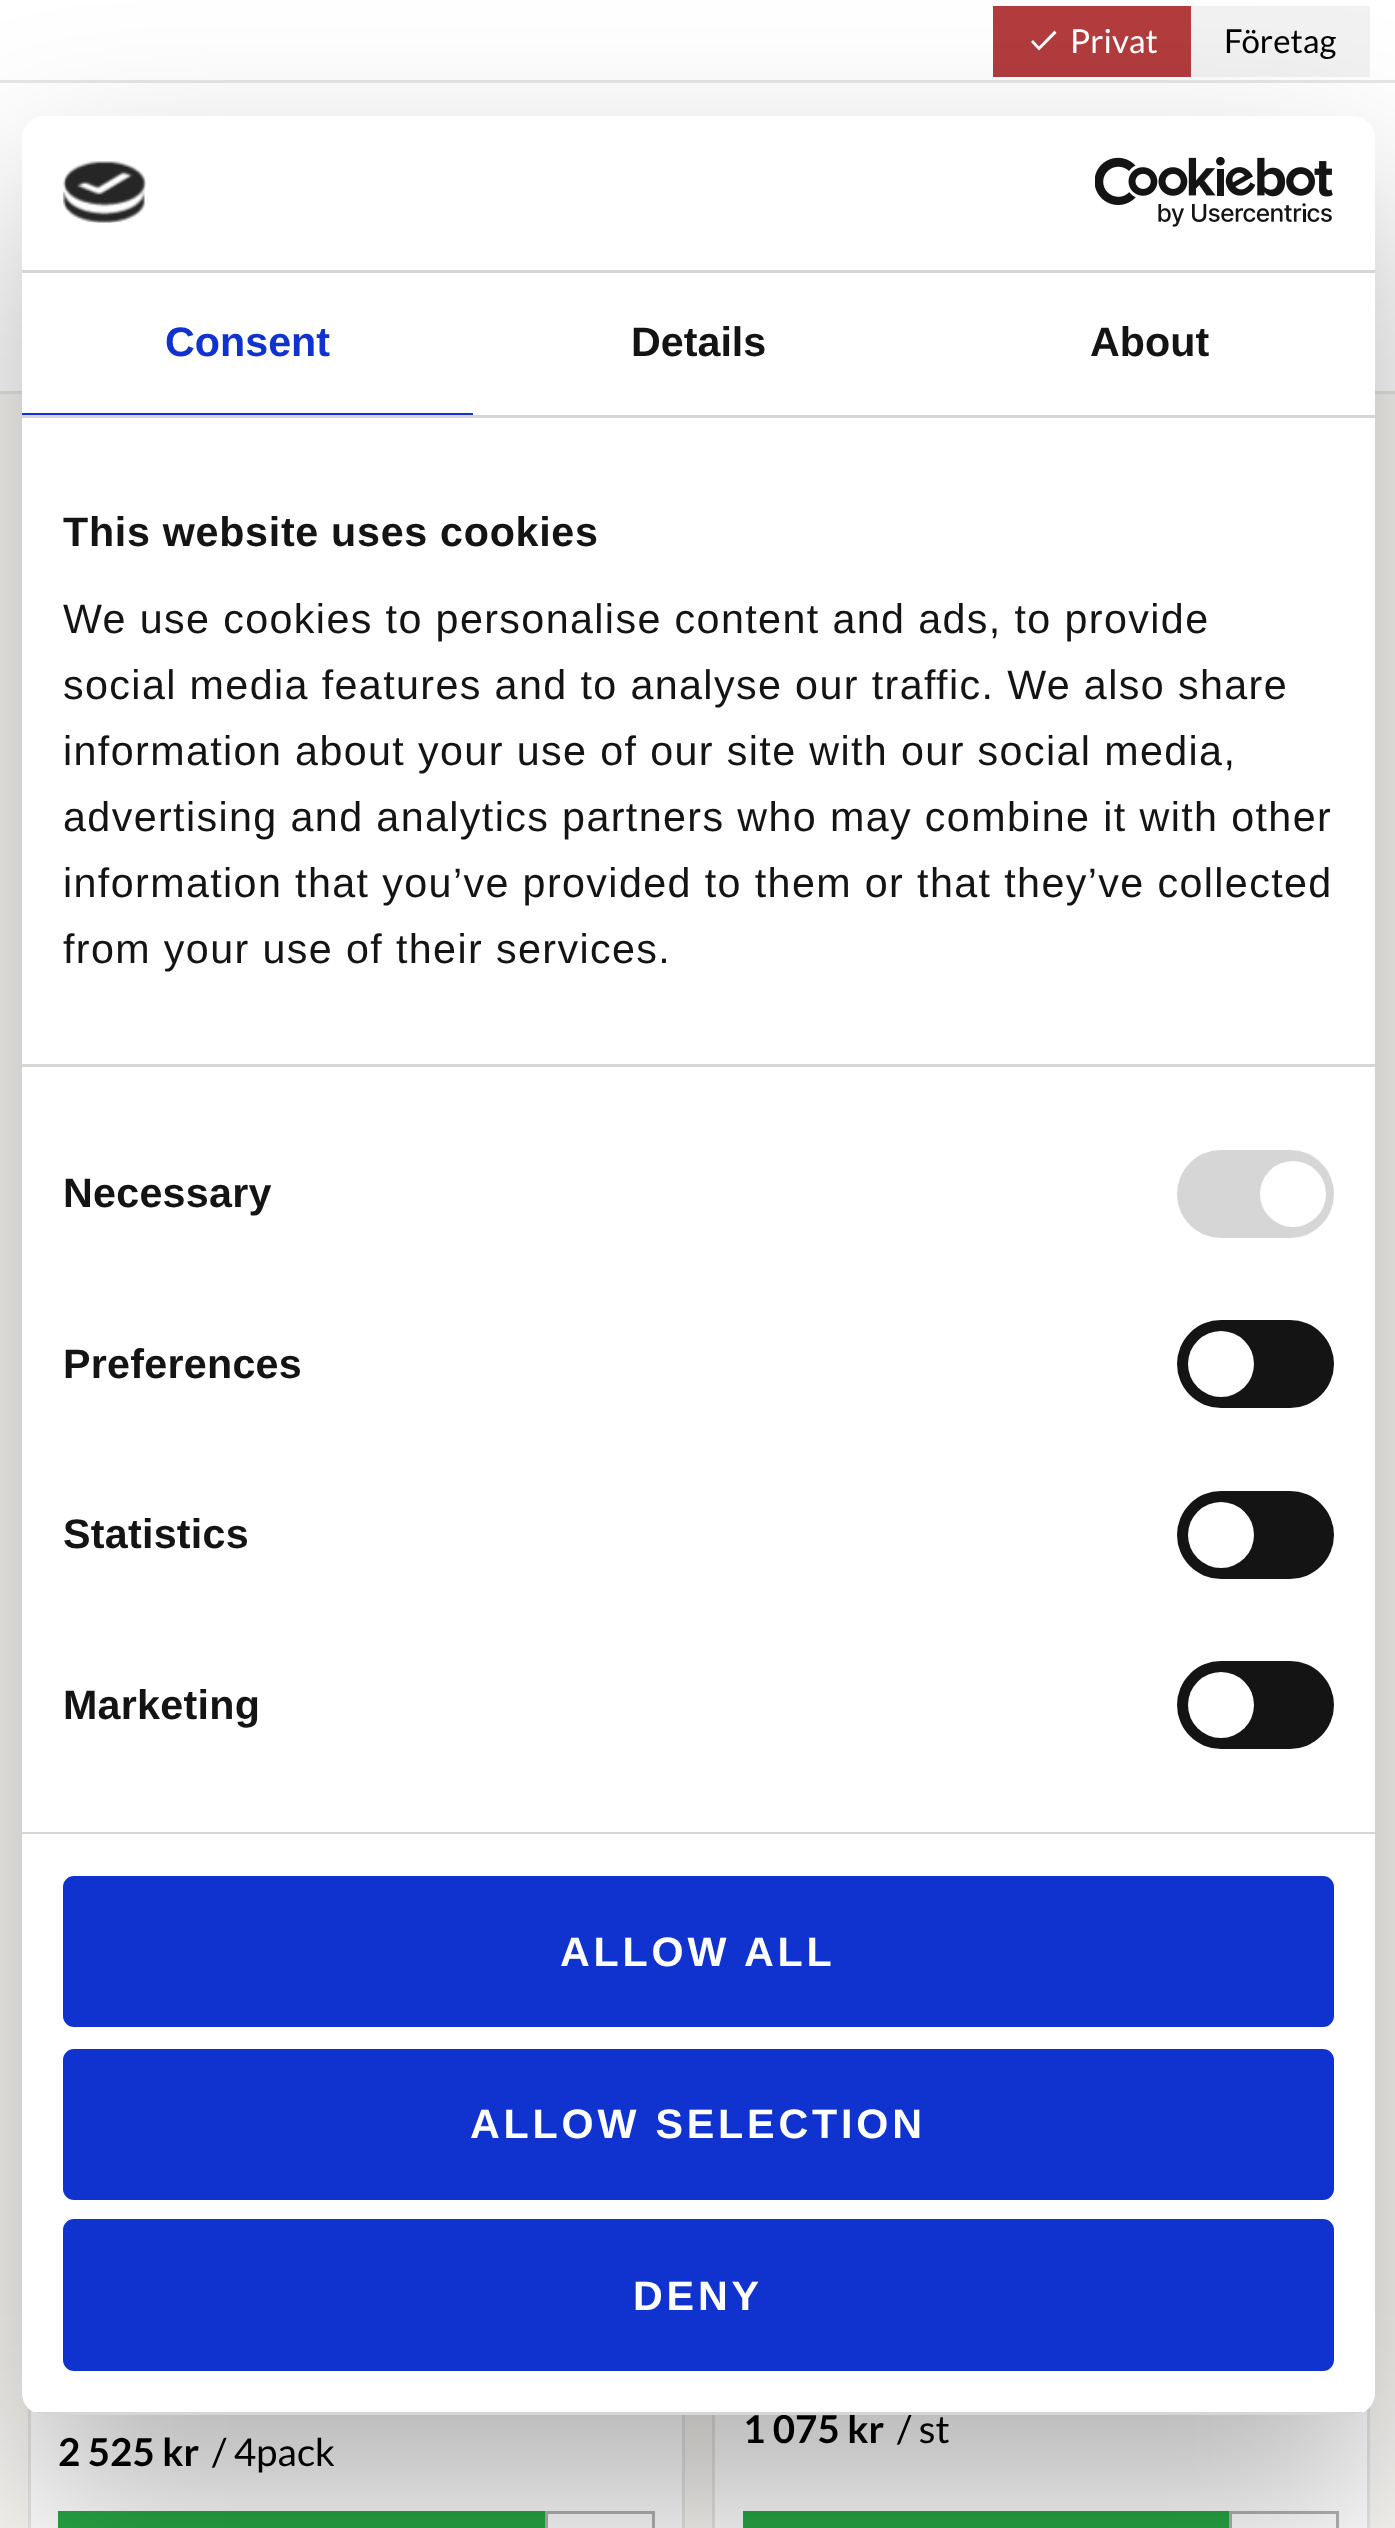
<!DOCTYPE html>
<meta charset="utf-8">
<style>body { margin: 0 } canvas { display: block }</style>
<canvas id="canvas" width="1395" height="2528"></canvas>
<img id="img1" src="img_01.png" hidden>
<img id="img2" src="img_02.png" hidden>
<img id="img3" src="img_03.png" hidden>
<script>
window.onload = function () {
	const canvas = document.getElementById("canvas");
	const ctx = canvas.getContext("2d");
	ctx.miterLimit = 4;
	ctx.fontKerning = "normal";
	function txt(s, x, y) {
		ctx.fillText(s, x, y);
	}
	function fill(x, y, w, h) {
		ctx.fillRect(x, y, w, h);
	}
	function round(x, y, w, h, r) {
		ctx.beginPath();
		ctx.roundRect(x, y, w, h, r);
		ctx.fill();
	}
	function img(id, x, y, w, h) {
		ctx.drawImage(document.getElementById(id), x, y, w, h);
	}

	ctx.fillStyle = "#F9F7F4";
	fill(0, 0, 1395, 2528);
	ctx.fillStyle = "#FFFFFF";
	fill(0, 0, 1395, 391);
	ctx.fillStyle = "#B33C3E";
	fill(993, 6, 198, 71);
	ctx.fillStyle = "#FFFFFF";
	ctx.beginPath();
	ctx.moveTo(1039, 46.5);
	ctx.lineTo(1054.5, 30.5);
	ctx.lineTo(1056.5, 33);
	ctx.lineTo(1039, 50.5);
	ctx.lineTo(1031, 42);
	ctx.lineTo(1033, 40);
	ctx.closePath();
	ctx.fill();
	ctx.fillStyle = "#F2F2F2";
	fill(1191, 6, 179, 71);
	ctx.fillStyle = "#E6E6E6";
	fill(0, 80, 1395, 3);
	img("img1", 27, 123, 1, 1);
	fill(0, 391, 1395, 3);
	ctx.fillStyle = "#FFFFFF";
	fill(715, 2410, 652, 118);
	ctx.strokeStyle = "#E6E6E6";
	ctx.lineWidth = 3;
	ctx.strokeRect(713.5, 1439.5, 655, 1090);
	ctx.fillStyle = "#28A745";
	fill(743, 2511, 486, 17);
	ctx.strokeStyle = "#B3B3B3";
	ctx.strokeRect(1230.5, 2512.5, 107, 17);
	ctx.fillStyle = "#FFFFFF";
	fill(31, 2410, 651, 118);
	ctx.strokeStyle = "#E6E6E6";
	ctx.strokeRect(29.5, 1439.5, 654, 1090);
	ctx.fillStyle = "#28A745";
	fill(58, 2511, 487, 17);
	ctx.strokeStyle = "#B3B3B3";
	ctx.strokeRect(546.5, 2512.5, 107, 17);
	ctx.fillStyle = "rgba(0, 0, 0, 0.3)";
	ctx.filter = "blur(93.5px)";
	ctx.beginPath();
	ctx.roundRect(22, 204, 1353, 2299, 22);
	ctx.fill();
	ctx.filter = "none";
	ctx.font = "33px Lato";
	ctx.fillStyle = "#FFFFFF";
	txt("Privat", 1070, 53);
	ctx.fillStyle = "#000000";
	txt("Företag", 1224, 53);
	ctx.font = "bold 38.5px Lato";
	txt("1 075 kr", 743, 2443);
	ctx.font = "38.5px Lato";
	txt("/ st", 897, 2443);
	ctx.font = "bold 38.5px Lato";
	txt("2 525 kr", 58, 2466);
	ctx.font = "38.5px Lato";
	txt("/ 4pack", 212, 2466);
	ctx.fillStyle = "#FFFFFF";
	round(22, 116, 1353, 2299, 22);
	ctx.fillStyle = "#D6D6D6";
	fill(22, 270, 1353, 3);
	img("img2", 63, 161, 83, 62);
	img("img3", 1095, 157, 238, 70);
	fill(22, 415, 1353, 3);
	ctx.fillStyle = "#1032CF";
	fill(22, 413, 451, 2);
	ctx.font = "bold 41.25px Liberation Sans";
	txt("Consent", 165, 356);
	ctx.fillStyle = "#141414";
	txt("Details", 631, 356);
	txt("About", 1090, 356);
	ctx.fillStyle = "#D6D6D6";
	fill(22, 1064, 1353, 3);
	ctx.letterSpacing = "0.7px";
	ctx.fillStyle = "#141414";
	txt("This website uses cookies", 63, 546);
	ctx.letterSpacing = "1.38px";
	ctx.font = "41.25px Liberation Sans";
	txt("We use cookies to personalise content and ads, to provide", 63, 633);
	txt("social media features and to analyse our traffic. We also share", 63, 699);
	txt("information about your use of our site with our social media,", 63, 765);
	txt("advertising and analytics partners who may combine it with other", 63, 831);
	txt("information that you’ve provided to them or that they’ve collected", 63, 897);
	txt("from your use of their services.", 63, 963);
	ctx.fillStyle = "#D6D6D6";
	fill(22, 1832, 1353, 2);
	ctx.letterSpacing = "0.25px";
	ctx.font = "bold 41.25px Liberation Sans";
	ctx.fillStyle = "#141414";
	txt("Necessary", 63, 1207);
	ctx.fillStyle = "#D6D6D6";
	round(1177, 1150, 157, 88, 44);
	ctx.fillStyle = "#FFFFFF";
	ctx.beginPath();
	ctx.arc(1293, 1194, 33, 0, Math.PI * 2);
	ctx.fill();
	ctx.fillStyle = "#141414";
	txt("Preferences", 63, 1378);
	round(1177, 1320, 157, 88, 44);
	ctx.fillStyle = "#FFFFFF";
	ctx.beginPath();
	ctx.arc(1221, 1364, 33, 0, Math.PI * 2);
	ctx.fill();
	ctx.fillStyle = "#141414";
	txt("Statistics", 63, 1548);
	round(1177, 1491, 157, 88, 44);
	ctx.fillStyle = "#FFFFFF";
	ctx.beginPath();
	ctx.arc(1221, 1535, 33, 0, Math.PI * 2);
	ctx.fill();
	ctx.fillStyle = "#141414";
	txt("Marketing", 63, 1719);
	round(1177, 1661, 157, 88, 44);
	ctx.fillStyle = "#FFFFFF";
	ctx.beginPath();
	ctx.arc(1221, 1705, 33, 0, Math.PI * 2);
	ctx.fill();
	ctx.save();
	ctx.beginPath();
	ctx.roundRect(22, 116, 1353, 2299, 22);
	ctx.clip();
	ctx.fillStyle = "#D6D6D6";
	fill(33, 2412, 1331, 3);
	ctx.restore();
	ctx.fillStyle = "#1032CF";
	ctx.beginPath();
	ctx.roundRect(66, 1879, 1265, 145, 8);
	ctx.fill();
	ctx.strokeStyle = "#1032CF";
	ctx.lineWidth = 6;
	ctx.stroke();
	ctx.letterSpacing = "3.8px";
	ctx.fillStyle = "#FFFFFF";
	txt("ALLOW ALL", 560, 1966);
	ctx.fillStyle = "#1032CF";
	ctx.beginPath();
	ctx.roundRect(66, 2052, 1265, 145, 8);
	ctx.fill();
	ctx.stroke();
	ctx.fillStyle = "#FFFFFF";
	txt("ALLOW SELECTION", 470, 2138);
	ctx.fillStyle = "#1032CF";
	ctx.beginPath();
	ctx.roundRect(66, 2222, 1265, 146, 8);
	ctx.fill();
	ctx.stroke();
	ctx.fillStyle = "#FFFFFF";
	txt("DENY", 633, 2310);
};
</script>
